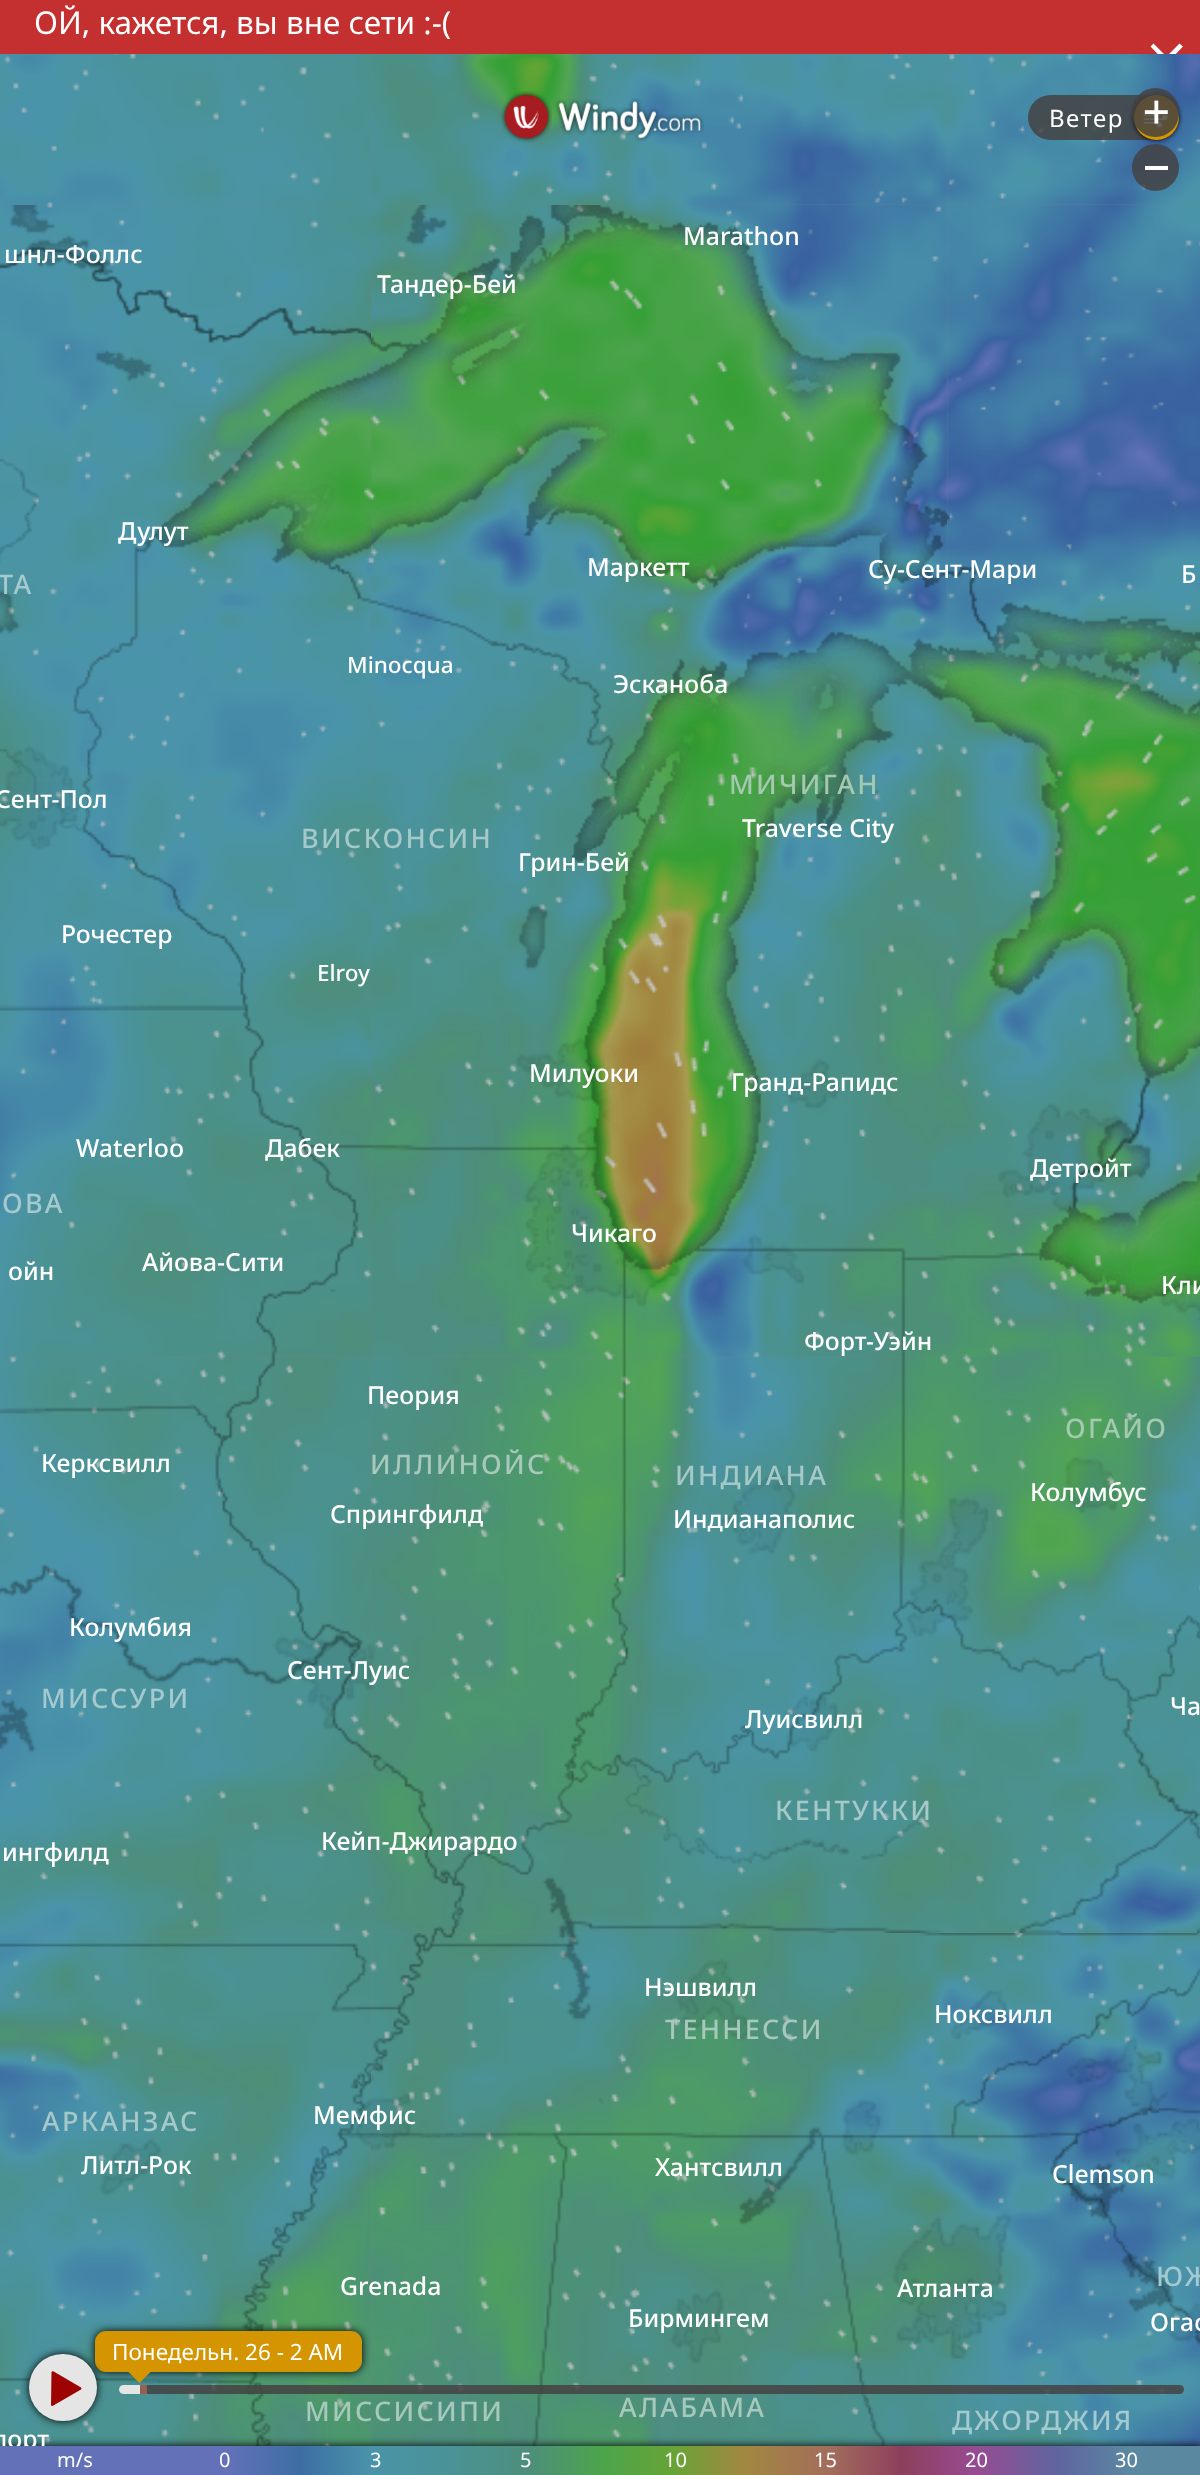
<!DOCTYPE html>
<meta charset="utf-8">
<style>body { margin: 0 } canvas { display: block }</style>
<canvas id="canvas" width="1200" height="2475"></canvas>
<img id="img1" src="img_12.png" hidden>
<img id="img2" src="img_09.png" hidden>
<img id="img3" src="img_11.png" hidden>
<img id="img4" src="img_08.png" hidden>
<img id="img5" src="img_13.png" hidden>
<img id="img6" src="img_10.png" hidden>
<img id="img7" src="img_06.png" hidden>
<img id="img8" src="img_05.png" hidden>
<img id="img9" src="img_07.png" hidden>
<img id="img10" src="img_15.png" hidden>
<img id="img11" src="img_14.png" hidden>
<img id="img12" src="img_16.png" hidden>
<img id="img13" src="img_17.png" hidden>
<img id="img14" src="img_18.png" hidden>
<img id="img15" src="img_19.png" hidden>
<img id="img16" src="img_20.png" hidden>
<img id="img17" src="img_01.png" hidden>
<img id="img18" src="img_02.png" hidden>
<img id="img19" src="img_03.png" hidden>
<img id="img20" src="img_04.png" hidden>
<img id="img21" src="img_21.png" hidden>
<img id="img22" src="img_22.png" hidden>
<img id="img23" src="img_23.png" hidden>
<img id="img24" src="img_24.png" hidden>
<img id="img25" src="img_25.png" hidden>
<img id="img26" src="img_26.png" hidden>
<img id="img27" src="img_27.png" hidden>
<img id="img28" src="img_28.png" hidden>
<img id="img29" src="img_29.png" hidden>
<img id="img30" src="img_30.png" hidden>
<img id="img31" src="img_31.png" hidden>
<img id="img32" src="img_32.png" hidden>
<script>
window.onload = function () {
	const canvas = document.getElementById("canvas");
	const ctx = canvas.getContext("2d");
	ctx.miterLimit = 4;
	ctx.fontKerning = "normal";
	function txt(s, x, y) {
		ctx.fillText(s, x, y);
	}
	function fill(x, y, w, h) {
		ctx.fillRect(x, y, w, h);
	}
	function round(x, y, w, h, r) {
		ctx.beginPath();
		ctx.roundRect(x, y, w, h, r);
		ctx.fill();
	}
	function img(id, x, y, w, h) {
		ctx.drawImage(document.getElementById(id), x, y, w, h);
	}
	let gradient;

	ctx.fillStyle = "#808080";
	fill(0, 0, 1200, 2475);
	ctx.fillStyle = "#C42F2F";
	fill(0, 0, 1200, 54);
	ctx.save();
	ctx.beginPath();
	ctx.rect(0, 0, 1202, 54);
	ctx.clip();
	ctx.fillStyle = "#FFFFFF";
	ctx.beginPath();
	ctx.moveTo(1183, 46.5);
	ctx.lineTo(1179.5, 43.5);
	ctx.lineTo(1166.5, 56.5);
	ctx.lineTo(1153.5, 43.5);
	ctx.lineTo(1150.5, 46.5);
	ctx.lineTo(1163.5, 60);
	ctx.lineTo(1150.5, 73);
	ctx.lineTo(1153.5, 76);
	ctx.lineTo(1166.5, 63);
	ctx.lineTo(1179.5, 76);
	ctx.lineTo(1183, 73);
	ctx.lineTo(1170, 60);
	ctx.closePath();
	ctx.fill();
	ctx.restore();
	img("img1", 371, 780, 577, 577);
	img("img2", 371, 204, 577, 577);
	img("img3", 0, 780, 372, 577);
	img("img4", 0, 204, 372, 577);
	img("img5", 947, 780, 253, 577);
	img("img6", 947, 204, 253, 577);
	img("img7", 371, 54, 577, 151);
	img("img8", 0, 54, 371, 151);
	img("img9", 947, 54, 253, 151);
	img("img10", 371, 1357, 577, 576);
	img("img11", 0, 1357, 372, 576);
	img("img12", 947, 1356, 253, 577);
	img("img13", 0, 1933, 371, 513);
	img("img14", 371, 1933, 577, 513);
	img("img15", 947, 1933, 253, 513);
	img("img16", 0, 54, 1200, 2392);
	img("img17", 501, 91, 51, 52);
	img("img18", 555, 98, 149, 44);
	ctx.fillStyle = "rgba(68, 65, 65, 0.84)";
	round(1028, 95, 151, 45, 22.5);
	ctx.fillStyle = "#000000";
	ctx.filter = "blur(2.5px)";
	ctx.beginPath();
	ctx.roundRect(1134, 95, 45, 45, 22.5);
	ctx.fill();
	ctx.filter = "none";
	ctx.fillStyle = "#D49500";
	ctx.beginPath();
	ctx.arc(1156.5, 117.5, 22.5, 0, Math.PI * 2);
	ctx.fill();
	img("img19", 1143, 110, 25, 18);
	ctx.fillStyle = "rgba(68, 65, 65, 0.84)";
	round(1132, 88, 47, 49, 23.5);
	img("img20", 1144, 100, 24, 24);
	ctx.beginPath();
	ctx.arc(1155.5, 167.5, 23.5, 0, Math.PI * 2);
	ctx.fill();
	ctx.fillStyle = "#FFFFFF";
	fill(1145, 166, 23, 4);
	img("img21", 0, 205, 371, 576);
	img("img22", 371, 205, 576, 576);
	img("img23", 947, 514, 253, 267);
	img("img24", 0, 781, 371, 576);
	img("img25", 371, 781, 576, 576);
	img("img26", 947, 781, 253, 540);
	img("img27", 0, 1357, 371, 401);
	img("img28", 371, 1357, 576, 576);
	img("img29", 947, 1457, 253, 476);
	img("img30", 0, 1943, 371, 503);
	img("img31", 371, 1933, 576, 513);
	img("img32", 947, 1933, 253, 426);
	ctx.fillStyle = "#000000";
	ctx.filter = "blur(4.5px)";
	ctx.beginPath();
	ctx.roundRect(95, 2331, 267, 41, 11);
	ctx.fill();
	ctx.filter = "none";
	ctx.fillStyle = "#D49500";
	round(95, 2331, 267, 41, 11);
	ctx.fillStyle = "#000000";
	ctx.filter = "blur(4.5px)";
	ctx.beginPath();
	ctx.roundRect(29, 2354, 68, 67, 33.5);
	ctx.fill();
	ctx.filter = "none";
	ctx.fillStyle = "#E5E5E5";
	round(29, 2354, 68, 67, 33.5);
	ctx.fillStyle = "#9D0300";
	ctx.beginPath();
	ctx.moveTo(81.5, 2388.5);
	ctx.lineTo(81, 2387.5);
	ctx.lineTo(58, 2374);
	ctx.bezierCurveTo(55.5, 2373, 52.5, 2370, 51.5, 2372);
	ctx.lineTo(51, 2405);
	ctx.bezierCurveTo(51, 2405.5, 52, 2406, 52.5, 2406);
	ctx.lineTo(81, 2389.5);
	ctx.closePath();
	ctx.fill();
	ctx.fillStyle = "#D49500";
	ctx.beginPath();
	ctx.moveTo(128, 2371.5);
	ctx.lineTo(151, 2371.5);
	ctx.lineTo(139.5, 2383);
	ctx.closePath();
	ctx.fill();
	ctx.fillStyle = "rgba(68, 65, 65, 0.84)";
	round(119, 2385, 1065, 9, 4.5);
	ctx.fillStyle = "#E5E5E5";
	ctx.beginPath();
	ctx.roundRect(119, 2385, 21, 9, [4.5, 0, 0, 4.5]);
	ctx.fill();
	ctx.fillStyle = "#946051";
	fill(140, 2385, 7, 9);
	ctx.fillStyle = "#000000";
	ctx.filter = "blur(4.5px)";
	ctx.beginPath();
	ctx.rect(0, 2446, 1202, 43);
	ctx.fill();
	ctx.filter = "none";
	ctx.font = "31.5px Noto Sans";
	ctx.fillStyle = "#FFFFFF";
	txt("ОЙ, кажется, вы вне сети :-(", 34, 34);
	ctx.letterSpacing = "1.5px";
	ctx.font = "24px Noto Sans";
	txt("Ветер", 1049, 127);
	ctx.letterSpacing = "0px";
	ctx.font = "500 24.75px Noto Sans";
	txt("шнл-Фоллс", 4, 263);
	txt("Дулут", 118, 540);
	ctx.letterSpacing = "2.25px";
	ctx.font = "500 27px Noto Sans";
	ctx.fillStyle = "#A4C9CF";
	txt("ТА", -2, 594);
	ctx.letterSpacing = "0px";
	ctx.font = "500 24.75px Noto Sans";
	ctx.fillStyle = "#FFFFFF";
	txt("Marathon", 683, 245);
	txt("Тандер-Бей", 377, 293);
	txt("Маркетт", 587, 576);
	ctx.font = "500 22.5px Noto Sans";
	txt("Minocqua", 347, 673);
	ctx.font = "500 24.75px Noto Sans";
	txt("Эсканоба", 613, 693);
	txt("Су-Сент-Мари", 868, 578);
	txt("Б", 1181, 583);
	txt("Сент-Пол", -5, 808);
	txt("Рочестер", 61, 943);
	ctx.font = "500 22.5px Noto Sans";
	txt("Elroy", 317, 981);
	ctx.font = "500 24.75px Noto Sans";
	txt("Waterloo", 76, 1157);
	txt("Дабек", 265, 1157);
	ctx.letterSpacing = "2.25px";
	ctx.font = "500 27px Noto Sans";
	ctx.fillStyle = "#A4C9CF";
	txt("ОВА", 2, 1213);
	ctx.letterSpacing = "0px";
	ctx.font = "500 24.75px Noto Sans";
	ctx.fillStyle = "#FFFFFF";
	txt("ойн", 8, 1280);
	txt("Айова-Сити", 142, 1271);
	ctx.letterSpacing = "2.25px";
	ctx.font = "500 27px Noto Sans";
	ctx.fillStyle = "#A3C9AF";
	txt("МИЧИГАН", 729, 794);
	ctx.fillStyle = "#A5C8C9";
	txt("ВИСКОНСИН", 301, 848);
	ctx.letterSpacing = "0px";
	ctx.font = "500 24.75px Noto Sans";
	ctx.fillStyle = "#FFFFFF";
	txt("Traverse City", 742, 837);
	txt("Грин-Бей", 518, 871);
	txt("Милуоки", 529, 1082);
	txt("Гранд-Рапидс", 731, 1091);
	txt("Чикаго", 571, 1242);
	txt("Форт-Уэйн", 804, 1350);
	txt("Детройт", 1030, 1177);
	txt("Кли", 1161, 1294);
	txt("Керксвилл", 41, 1472);
	txt("Колумбия", 69, 1636);
	txt("Сент-Луис", 287, 1679);
	ctx.letterSpacing = "2.25px";
	ctx.font = "500 27px Noto Sans";
	ctx.fillStyle = "#A4C9CF";
	txt("МИССУРИ", 41, 1708);
	ctx.letterSpacing = "0px";
	ctx.font = "500 24.75px Noto Sans";
	ctx.fillStyle = "#FFFFFF";
	txt("ингфилд", 2, 1861);
	txt("Пеория", 367, 1404);
	ctx.letterSpacing = "2.25px";
	ctx.font = "500 27px Noto Sans";
	ctx.fillStyle = "#A6C9BB";
	txt("ИЛЛИНОЙС", 370, 1474);
	ctx.fillStyle = "#A5C8C9";
	txt("ИНДИАНА", 675, 1485);
	ctx.letterSpacing = "0px";
	ctx.font = "500 24.75px Noto Sans";
	ctx.fillStyle = "#FFFFFF";
	txt("Спрингфилд", 330, 1523);
	txt("Индианаполис", 673, 1528);
	txt("Луисвилл", 745, 1728);
	ctx.letterSpacing = "2.25px";
	ctx.font = "500 27px Noto Sans";
	ctx.fillStyle = "#A5C8C9";
	txt("КЕНТУККИ", 775, 1820);
	ctx.letterSpacing = "0px";
	ctx.font = "500 24.75px Noto Sans";
	ctx.fillStyle = "#FFFFFF";
	txt("Кейп-Джирардо", 321, 1850);
	ctx.letterSpacing = "2.25px";
	ctx.font = "500 27px Noto Sans";
	ctx.fillStyle = "#A3C9AF";
	txt("ОГАЙО", 1065, 1438);
	ctx.letterSpacing = "0px";
	ctx.font = "500 24.75px Noto Sans";
	ctx.fillStyle = "#FFFFFF";
	txt("Колумбус", 1030, 1501);
	txt("Ча", 1170, 1715);
	ctx.letterSpacing = "2.25px";
	ctx.font = "500 27px Noto Sans";
	ctx.fillStyle = "#A5C8C9";
	txt("АРКАНЗАС", 42, 2131);
	ctx.letterSpacing = "0px";
	ctx.font = "500 24.75px Noto Sans";
	ctx.fillStyle = "#FFFFFF";
	txt("Мемфис", 313, 2124);
	txt("Литл-Рок", 81, 2174);
	txt("порт", -8, 2448);
	txt("Нэшвилл", 644, 1996);
	ctx.letterSpacing = "2.25px";
	ctx.font = "500 27px Noto Sans";
	ctx.fillStyle = "#A6C9BB";
	txt("ТЕННЕССИ", 665, 2039);
	ctx.letterSpacing = "0px";
	ctx.font = "500 24.75px Noto Sans";
	ctx.fillStyle = "#FFFFFF";
	txt("Хантсвилл", 655, 2176);
	txt("Grenada", 340, 2295);
	txt("Атланта", 897, 2297);
	txt("Бирмингем", 628, 2327);
	ctx.letterSpacing = "2.25px";
	ctx.font = "500 27px Noto Sans";
	ctx.fillStyle = "#A6C9BB";
	txt("МИССИСИПИ", 305, 2421);
	txt("АЛАБАМА", 619, 2417);
	ctx.letterSpacing = "0px";
	ctx.font = "500 24.75px Noto Sans";
	ctx.fillStyle = "#FFFFFF";
	txt("Ноксвилл", 934, 2023);
	txt("Clemson", 1052, 2183);
	ctx.letterSpacing = "2.25px";
	ctx.font = "500 27px Noto Sans";
	ctx.fillStyle = "#A4C9CF";
	txt("ЮЖ", 1156, 2286);
	ctx.letterSpacing = "0px";
	ctx.font = "500 24.75px Noto Sans";
	ctx.fillStyle = "#FFFFFF";
	txt("Огас", 1150, 2331);
	ctx.letterSpacing = "2.25px";
	ctx.font = "500 27px Noto Sans";
	ctx.fillStyle = "#A4C9CF";
	txt("ДЖОРДЖИЯ", 952, 2430);
	ctx.letterSpacing = "0px";
	ctx.font = "22.5px Noto Sans";
	ctx.fillStyle = "#FFFFFF";
	txt("Понедельн. 26 - 2 AM", 112, 2360);
	gradient = ctx.createLinearGradient(0, 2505, 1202, 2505);
	gradient.addColorStop(0, "#6271B8");
	gradient.addColorStop(0.19, "#6271B8");
	gradient.addColorStop(0.25, "#3D6EA3");
	gradient.addColorStop(0.31, "#4A94AA");
	gradient.addColorStop(0.38, "#4A9294");
	gradient.addColorStop(0.44, "#4D8E7C");
	gradient.addColorStop(0.5, "#4CA44C");
	gradient.addColorStop(0.56, "#67A436");
	gradient.addColorStop(0.62, "#A28740");
	gradient.addColorStop(0.69, "#A26D5C");
	gradient.addColorStop(0.75, "#8D3F5C");
	gradient.addColorStop(0.81, "#974B91");
	gradient.addColorStop(0.88, "#5F64A0");
	gradient.addColorStop(0.94, "#5B88A1");
	gradient.addColorStop(1, "#5B88A1");
	ctx.fillStyle = gradient;
	fill(0, 2446, 1200, 29);
	ctx.font = "20px Noto Sans";
	ctx.fillStyle = "#FFFFFF";
	txt("m/s", 57, 2467);
	txt("0", 219, 2467);
	txt("3", 370, 2467);
	txt("5", 520, 2467);
	txt("10", 664, 2467);
	txt("15", 814, 2467);
	txt("20", 965, 2467);
	txt("30", 1115, 2467);
};
</script>
